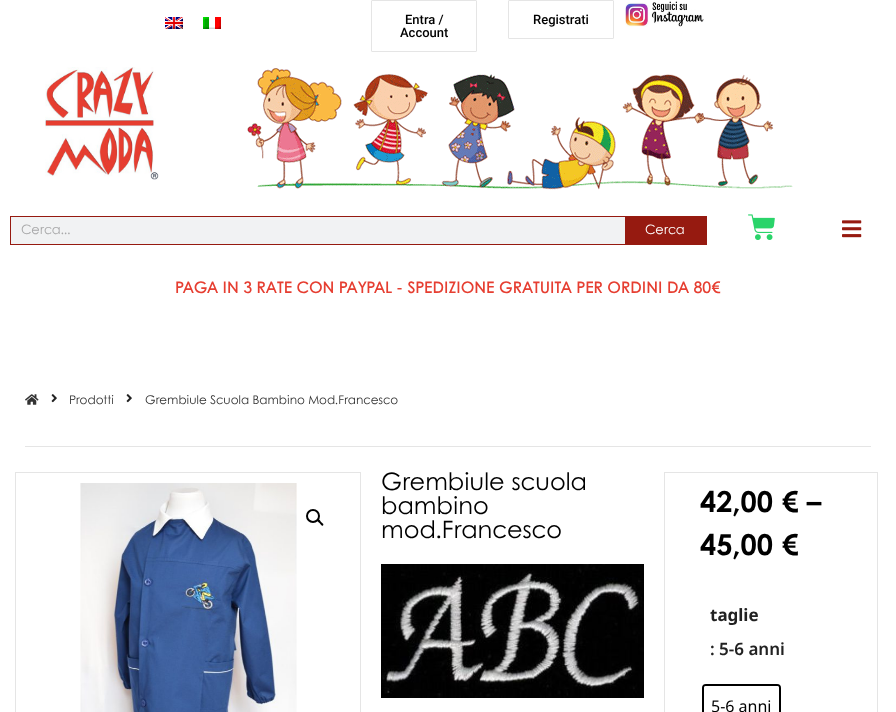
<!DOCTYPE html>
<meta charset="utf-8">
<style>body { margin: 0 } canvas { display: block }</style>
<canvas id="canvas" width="896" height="712"></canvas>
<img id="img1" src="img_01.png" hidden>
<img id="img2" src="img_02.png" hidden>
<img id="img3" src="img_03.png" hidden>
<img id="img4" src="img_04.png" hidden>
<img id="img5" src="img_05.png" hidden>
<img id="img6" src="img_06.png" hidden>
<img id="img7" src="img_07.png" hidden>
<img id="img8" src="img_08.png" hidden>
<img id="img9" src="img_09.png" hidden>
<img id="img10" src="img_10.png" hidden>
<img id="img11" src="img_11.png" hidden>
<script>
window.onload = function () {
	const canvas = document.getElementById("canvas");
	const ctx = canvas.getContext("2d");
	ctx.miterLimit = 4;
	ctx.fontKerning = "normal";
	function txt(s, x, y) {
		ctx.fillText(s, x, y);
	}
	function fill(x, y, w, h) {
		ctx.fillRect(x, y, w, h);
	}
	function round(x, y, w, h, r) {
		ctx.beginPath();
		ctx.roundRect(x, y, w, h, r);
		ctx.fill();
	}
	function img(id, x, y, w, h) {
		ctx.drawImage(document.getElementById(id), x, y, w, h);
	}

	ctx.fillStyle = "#FFFFFF";
	fill(0, 0, 896, 712);
	img("img1", 165, 17, 18, 12);
	img("img2", 203, 17, 18, 12);
	ctx.beginPath();
	ctx.roundRect(371.5, 0.5, 105, 51, 0.5);
	ctx.strokeStyle = "#E5E5E5";
	ctx.stroke();
	ctx.beginPath();
	ctx.roundRect(508.5, 0.5, 105, 38, 0.5);
	ctx.stroke();
	img("img3", 625, 1, 79, 26);
	img("img4", 45, 67, 114, 113);
	img("img5", 247, 68, 546, 122);
	ctx.fillStyle = "#F1F2F3";
	fill(11, 217, 614, 27);
	ctx.strokeStyle = "#961A10";
	ctx.strokeRect(10.5, 216.5, 696, 28);
	ctx.fillStyle = "#961A10";
	fill(625, 217, 81, 27);
	img("img6", 748, 214, 27, 26);
	img("img7", 842, 220, 20, 18);
	img("img8", 25, 394, 14, 11);
	img("img9", 51, 394, 6, 9);
	img("img9", 126, 394, 6, 9);
	ctx.fillStyle = "#E5E5E5";
	fill(25, 446, 846, 1);
	ctx.strokeStyle = "#E5E5E5";
	ctx.strokeRect(15.5, 472.5, 345, 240);
	img("img10", 80, 483, 217, 229);
	ctx.beginPath();
	ctx.arc(313, 516, 6, 0, Math.PI * 2);
	ctx.strokeStyle = "#000000";
	ctx.lineWidth = 2;
	ctx.stroke();
	ctx.fillStyle = "#000000";
	ctx.beginPath();
	ctx.moveTo(317.5, 519.5);
	ctx.bezierCurveTo(319, 518.5, 320.5, 521, 321, 522);
	ctx.bezierCurveTo(321.5, 522.5, 324.5, 524, 323, 525.5);
	ctx.bezierCurveTo(322, 526.5, 320.5, 524, 319.5, 523);
	ctx.bezierCurveTo(319, 522.5, 316.5, 521, 317.5, 519.5);
	ctx.closePath();
	ctx.fill();
	img("img11", 381, 564, 263, 134);
	ctx.strokeStyle = "#E5E5E5";
	ctx.lineWidth = 1;
	ctx.strokeRect(664.5, 472.5, 213, 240);
	ctx.beginPath();
	ctx.roundRect(703, 685, 77, 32, 3);
	ctx.strokeStyle = "#000000";
	ctx.lineWidth = 2;
	ctx.stroke();
	ctx.fillStyle = "#FFFFFF";
	round(704, 686, 75, 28, 2);
	ctx.font = "500 13px Roboto";
	ctx.fillStyle = "#000000";
	txt("Entra /", 405, 24);
	txt("Account", 400, 37);
	txt("Registrati", 533, 24);
	ctx.font = "13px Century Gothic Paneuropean";
	ctx.fillStyle = "#A8A8A9";
	txt("Cerca...", 21, 234);
	ctx.fillStyle = "#FFFFFF";
	txt("Cerca", 645, 234);
	ctx.font = "600 16px Century Gothic Paneuropean";
	ctx.fillStyle = "#E63E31";
	txt("PAGA IN 3 RATE CON PAYPAL - SPEDIZIONE GRATUITA PER ORDINI DA 80€", 175, 293);
	ctx.font = "12px Century Gothic Paneuropean";
	ctx.fillStyle = "#333333";
	txt("Prodotti", 69, 404);
	txt("Grembiule Scuola Bambino Mod.Francesco", 145, 404);
	ctx.font = "24px Century Gothic Paneuropean";
	ctx.fillStyle = "#000000";
	txt("Grembiule scuola", 381, 490);
	txt("bambino", 381, 514);
	txt("mod.Francesco", 381, 538);
	ctx.font = "bold 29px Century Gothic Paneuropean";
	txt("42,00 € –", 700, 512);
	txt("45,00 €", 700, 555);
	ctx.font = "bold 17px Noto Sans";
	ctx.fillStyle = "#222222";
	txt("taglie", 710, 621);
	ctx.font = "600 17px Noto Sans";
	txt(": 5-6 anni", 710, 655);
	ctx.font = "16px Noto Sans";
	ctx.fillStyle = "#000000";
	txt("5-6 anni", 711, 712);
};
</script>
